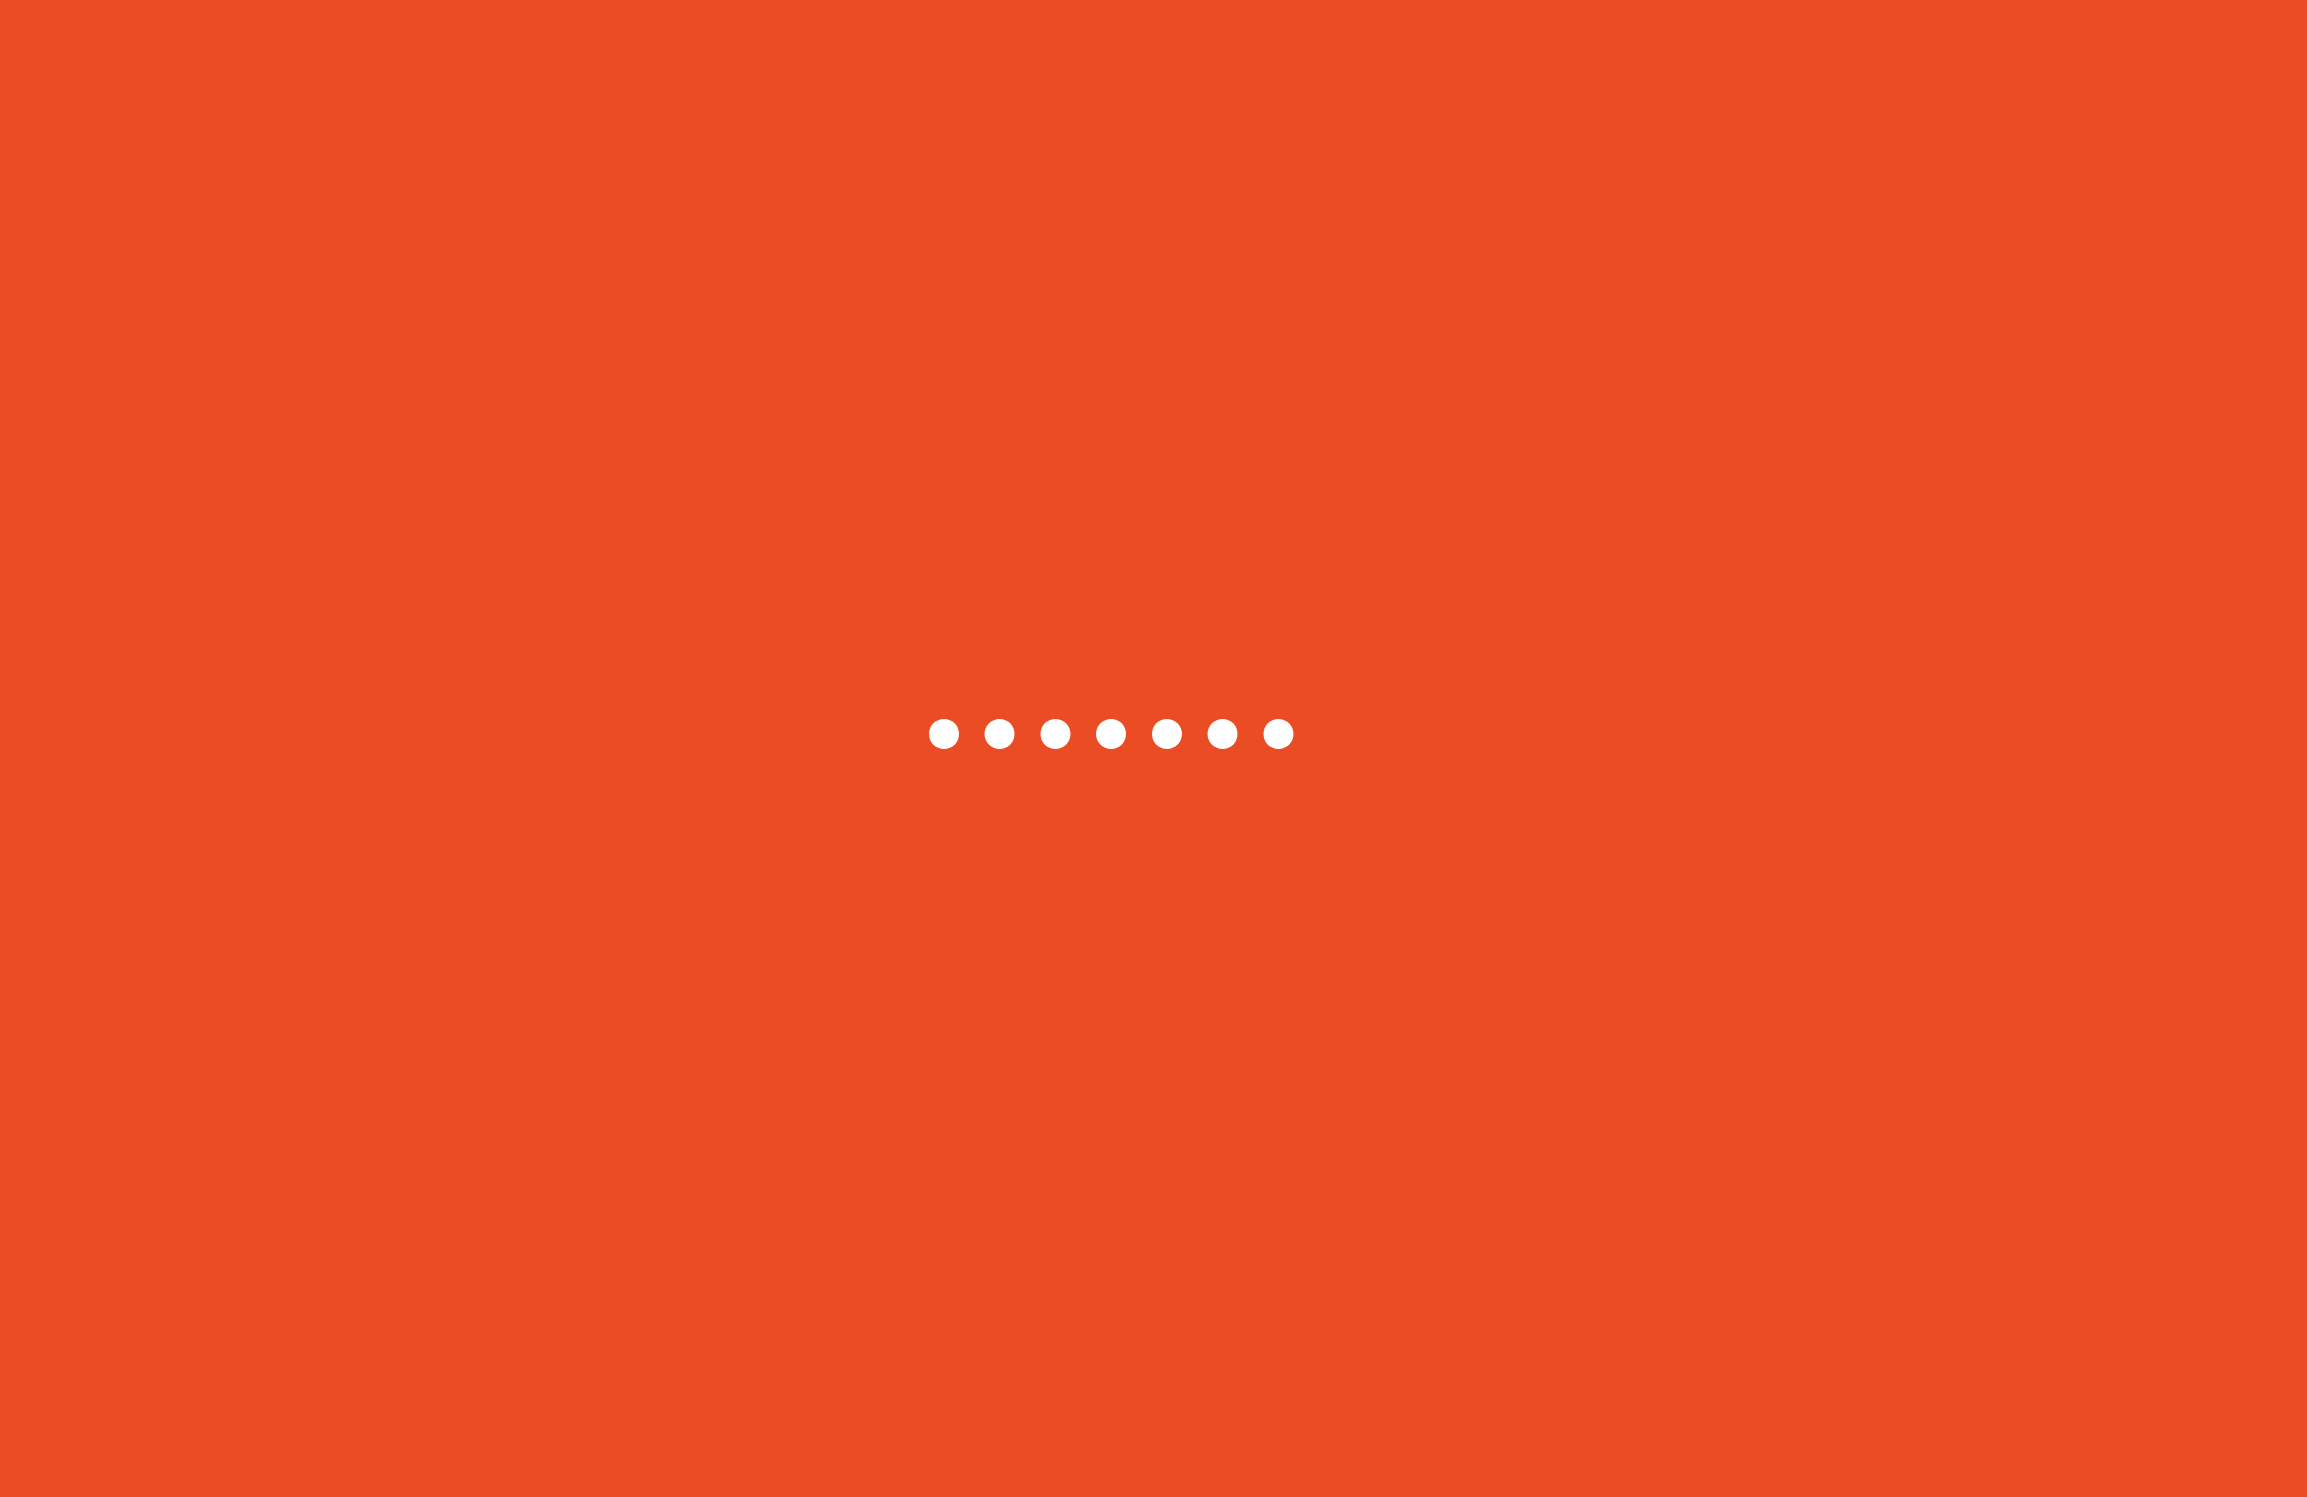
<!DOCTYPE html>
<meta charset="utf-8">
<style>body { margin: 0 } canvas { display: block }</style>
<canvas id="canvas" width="2307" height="1497"></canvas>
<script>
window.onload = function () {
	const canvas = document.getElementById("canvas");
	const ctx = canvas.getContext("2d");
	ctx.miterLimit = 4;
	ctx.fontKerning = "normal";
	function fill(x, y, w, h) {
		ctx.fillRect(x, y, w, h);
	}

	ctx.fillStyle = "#EA4C23";
	fill(0, 0, 2307, 1497);
	ctx.fillStyle = "#FFFFFF";
	ctx.beginPath();
	ctx.moveTo(944, 749);
	ctx.bezierCurveTo(935.5, 749, 929, 742.5, 929, 734);
	ctx.bezierCurveTo(929, 725.5, 935.5, 719, 944, 719);
	ctx.bezierCurveTo(952.5, 719, 959, 725.5, 959, 734);
	ctx.bezierCurveTo(959, 742.5, 952.5, 749, 944, 749);
	ctx.closePath();
	ctx.fill();
	ctx.beginPath();
	ctx.moveTo(999.5, 749);
	ctx.bezierCurveTo(991.5, 749, 984.5, 742.5, 984.5, 734);
	ctx.bezierCurveTo(984.5, 725.5, 991.5, 719, 999.5, 719);
	ctx.bezierCurveTo(1008, 719, 1014.5, 725.5, 1014.5, 734);
	ctx.bezierCurveTo(1014.5, 742.5, 1008, 749, 999.5, 749);
	ctx.closePath();
	ctx.fill();
	ctx.beginPath();
	ctx.moveTo(1055.5, 749);
	ctx.bezierCurveTo(1047, 749, 1040.5, 742.5, 1040.5, 734);
	ctx.bezierCurveTo(1040.5, 725.5, 1047, 719, 1055.5, 719);
	ctx.bezierCurveTo(1063.5, 719, 1070.5, 725.5, 1070.5, 734);
	ctx.bezierCurveTo(1070.5, 742.5, 1063.5, 749, 1055.5, 749);
	ctx.closePath();
	ctx.fill();
	ctx.beginPath();
	ctx.moveTo(1111, 749);
	ctx.bezierCurveTo(1103, 749, 1096, 742.5, 1096, 734);
	ctx.bezierCurveTo(1096, 725.5, 1103, 719, 1111, 719);
	ctx.bezierCurveTo(1119.5, 719, 1126, 725.5, 1126, 734);
	ctx.bezierCurveTo(1126, 742.5, 1119.5, 749, 1111, 749);
	ctx.closePath();
	ctx.fill();
	ctx.beginPath();
	ctx.moveTo(1167, 749);
	ctx.bezierCurveTo(1158.5, 749, 1152, 742.5, 1152, 734);
	ctx.bezierCurveTo(1152, 725.5, 1158.5, 719, 1167, 719);
	ctx.bezierCurveTo(1175, 719, 1182, 725.5, 1182, 734);
	ctx.bezierCurveTo(1182, 742.5, 1175, 749, 1167, 749);
	ctx.closePath();
	ctx.fill();
	ctx.beginPath();
	ctx.moveTo(1222.5, 749);
	ctx.bezierCurveTo(1214.5, 749, 1207.5, 742.5, 1207.5, 734);
	ctx.bezierCurveTo(1207.5, 725.5, 1214.5, 719, 1222.5, 719);
	ctx.bezierCurveTo(1231, 719, 1237.5, 725.5, 1237.5, 734);
	ctx.bezierCurveTo(1237.5, 742.5, 1231, 749, 1222.5, 749);
	ctx.closePath();
	ctx.fill();
	ctx.beginPath();
	ctx.moveTo(1278.5, 749);
	ctx.bezierCurveTo(1270, 749, 1263.5, 742.5, 1263.5, 734);
	ctx.bezierCurveTo(1263.5, 725.5, 1270, 719, 1278.5, 719);
	ctx.bezierCurveTo(1286.5, 719, 1293.5, 725.5, 1293.5, 734);
	ctx.bezierCurveTo(1293.5, 742.5, 1286.5, 749, 1278.5, 749);
	ctx.closePath();
	ctx.fill();
};
</script>
